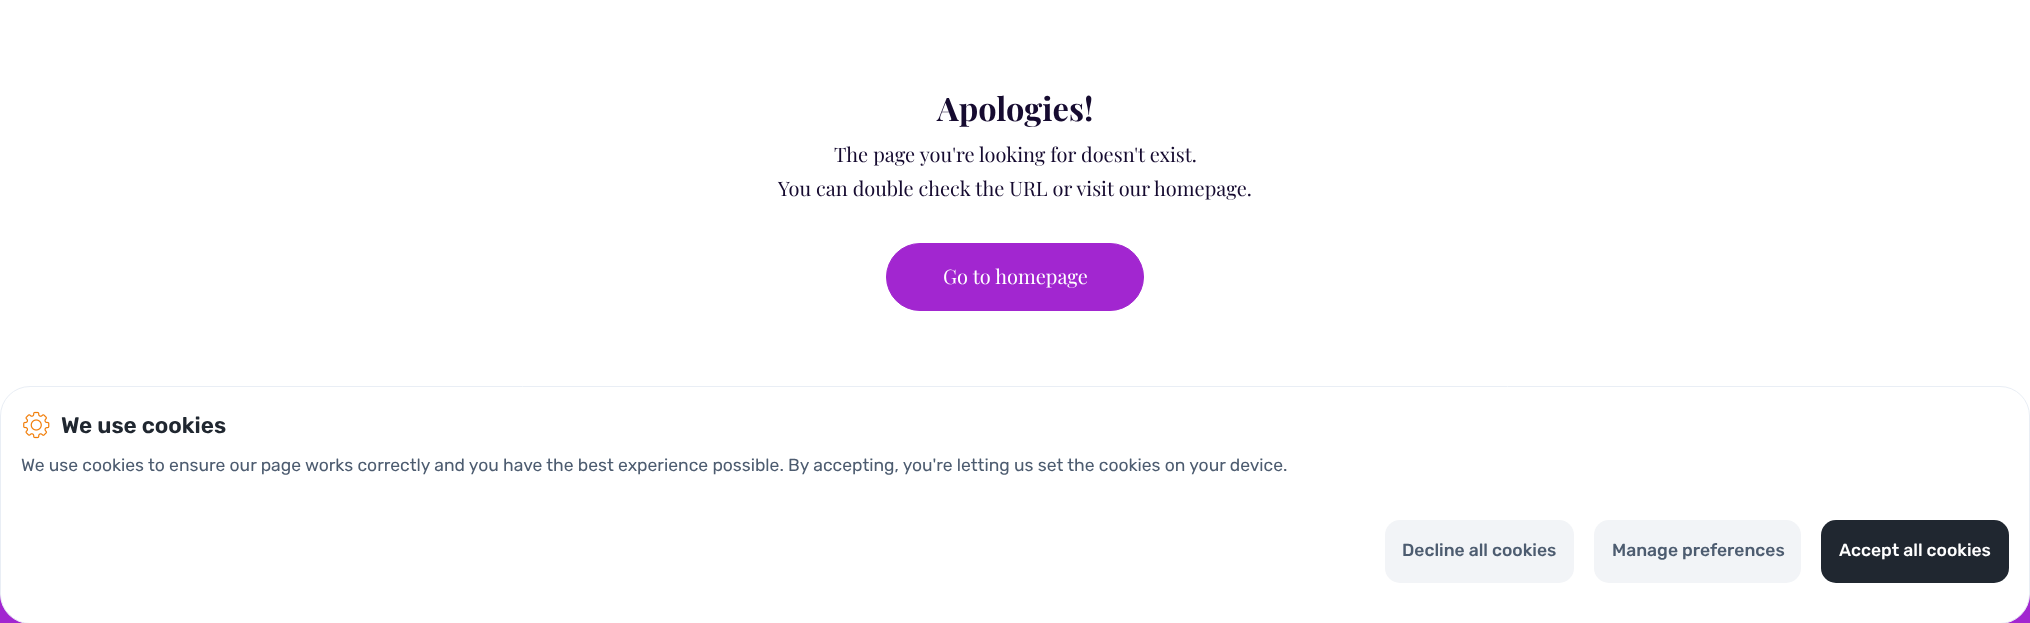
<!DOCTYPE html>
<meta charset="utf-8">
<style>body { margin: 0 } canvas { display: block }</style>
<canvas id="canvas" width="2030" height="623"></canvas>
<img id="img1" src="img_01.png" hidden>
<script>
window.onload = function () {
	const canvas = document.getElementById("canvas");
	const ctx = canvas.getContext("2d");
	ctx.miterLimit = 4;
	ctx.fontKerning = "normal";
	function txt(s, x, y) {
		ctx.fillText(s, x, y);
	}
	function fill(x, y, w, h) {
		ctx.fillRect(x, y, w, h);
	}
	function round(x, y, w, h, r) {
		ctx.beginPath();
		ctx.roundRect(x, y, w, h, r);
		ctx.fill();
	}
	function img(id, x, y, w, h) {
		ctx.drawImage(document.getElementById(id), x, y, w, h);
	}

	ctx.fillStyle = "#FFFFFF";
	fill(0, 0, 2030, 623);
	ctx.fillStyle = "#A226D0";
	ctx.beginPath();
	ctx.roundRect(886.5, 243.5, 257, 67, 33.5);
	ctx.fill();
	ctx.strokeStyle = "#A226D0";
	ctx.stroke();
	fill(0, 594, 2030, 29);
	ctx.fillStyle = "#FFFFFF";
	ctx.beginPath();
	ctx.roundRect(0.5, 386.5, 2029, 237, 29.5);
	ctx.fill();
	ctx.strokeStyle = "#E9EEF5";
	ctx.stroke();
	img("img1", 23, 411, 27, 28);
	ctx.fillStyle = "#F2F4F7";
	round(1385, 520, 189, 63, 15);
	round(1594, 520, 207, 63, 15);
	ctx.fillStyle = "#202730";
	round(1821, 520, 188, 63, 15);
	ctx.font = "bold 32.5px Playfair Display";
	ctx.fillStyle = "#160B30";
	txt("Apologies!", 937, 121);
	ctx.font = "20px Playfair Display";
	txt("The page you're looking for doesn't exist.", 834, 162);
	txt("You can double check the URL or visit our homepage.", 778, 196);
	ctx.fillStyle = "#FFFFFF";
	txt("Go to homepage", 943, 284);
	ctx.font = "600 22.5px Rubik";
	ctx.fillStyle = "#202730";
	txt("We use cookies", 61, 433);
	ctx.font = "17.5px Rubik";
	ctx.fillStyle = "#4D5C70";
	txt("We use cookies to ensure our page works correctly and you have the best experience possible. By accepting, you're letting us set the cookies on your device.", 21, 471);
	ctx.font = "500 17.5px Rubik";
	txt("Decline all cookies", 1402, 556);
	txt("Manage preferences", 1612, 556);
	ctx.fillStyle = "#FFFFFF";
	txt("Accept all cookies", 1839, 556);
};
</script>
